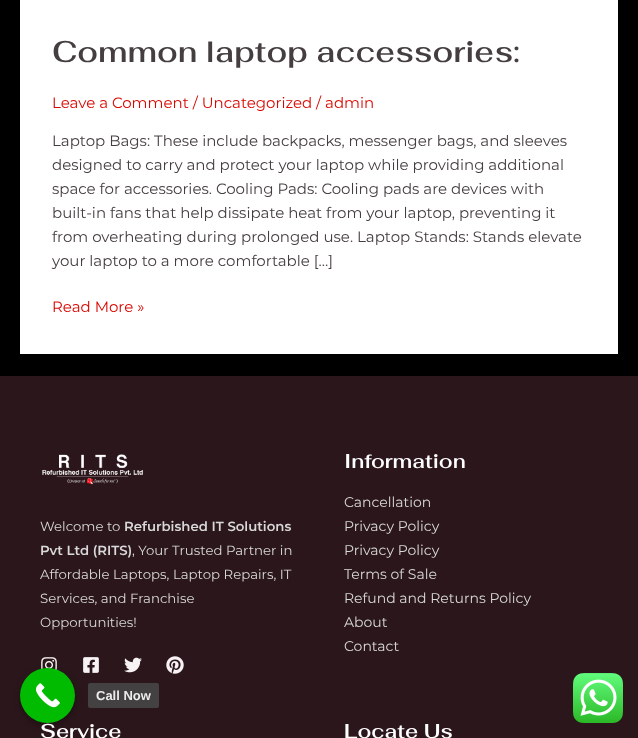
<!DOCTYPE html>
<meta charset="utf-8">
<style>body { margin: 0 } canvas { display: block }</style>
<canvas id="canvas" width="638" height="738"></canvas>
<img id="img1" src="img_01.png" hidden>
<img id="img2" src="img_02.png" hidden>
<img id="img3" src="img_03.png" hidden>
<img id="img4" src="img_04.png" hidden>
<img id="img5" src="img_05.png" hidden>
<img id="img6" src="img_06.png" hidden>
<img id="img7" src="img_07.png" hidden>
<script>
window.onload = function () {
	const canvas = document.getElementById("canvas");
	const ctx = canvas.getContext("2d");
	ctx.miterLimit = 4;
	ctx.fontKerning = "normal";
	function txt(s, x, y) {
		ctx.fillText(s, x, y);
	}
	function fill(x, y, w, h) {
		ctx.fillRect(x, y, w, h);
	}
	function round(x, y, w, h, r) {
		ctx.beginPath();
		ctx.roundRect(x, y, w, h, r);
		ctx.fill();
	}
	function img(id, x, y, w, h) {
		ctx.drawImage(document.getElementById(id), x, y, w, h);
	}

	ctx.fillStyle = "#000000";
	fill(0, 0, 638, 738);
	ctx.fillStyle = "#FFFFFF";
	fill(20, 0, 598, 354);
	ctx.fillStyle = "#2B161B";
	fill(0, 376, 638, 362);
	img("img1", 42, 454, 101, 31);
	img("img2", 41, 657, 16, 13);
	img("img3", 83, 657, 16, 16);
	img("img4", 124, 657, 18, 16);
	img("img5", 166, 656, 18, 18);
	img("img6", 573, 673, 50, 50);
	ctx.fillStyle = "rgba(0, 0, 0, 0.3)";
	ctx.filter = "blur(3px)";
	ctx.beginPath();
	ctx.roundRect(20, 671, 55, 55, 27.5);
	ctx.fill();
	ctx.filter = "none";
	ctx.fillStyle = "#00BB00";
	ctx.beginPath();
	ctx.arc(47.5, 695.5, 27.5, 0, Math.PI * 2);
	ctx.fill();
	img("img7", 35, 683, 25, 25);
	ctx.fillStyle = "#434142";
	round(88, 683, 71, 25, 2);
	ctx.font = "600 30px Fahkwang";
	ctx.fillStyle = "#453E3E";
	txt("Common laptop accessories:", 52, 62);
	ctx.font = "15px Montserrat";
	ctx.fillStyle = "#D90700";
	txt("Leave a Comment / Uncategorized / admin", 52, 108);
	ctx.fillStyle = "#453E3E";
	txt("Laptop Bags: These include backpacks, messenger bags, and sleeves", 52, 146);
	txt("designed to carry and protect your laptop while providing additional", 52, 170);
	txt("space for accessories. Cooling Pads: Cooling pads are devices with", 52, 194);
	txt("built-in fans that help dissipate heat from your laptop, preventing it", 52, 218);
	txt("from overheating during prolonged use. Laptop Stands: Stands elevate", 52, 242);
	txt("your laptop to a more comfortable […]", 52, 266);
	ctx.fillStyle = "#D90700";
	txt("Read More »", 52, 312);
	ctx.font = "13.3px Montserrat";
	ctx.fillStyle = "#D9D9D9";
	txt("Welcome to", 40, 531);
	ctx.font = "600 13.3px Montserrat";
	txt("Refurbished IT Solutions", 124, 531);
	txt("Pvt Ltd (RITS)", 40, 555);
	ctx.font = "13.3px Montserrat";
	txt(", Your Trusted Partner in", 132, 555);
	txt("Affordable Laptops, Laptop Repairs, IT", 40, 579);
	txt("Services, and Franchise", 40, 603);
	txt("Opportunities!", 40, 627);
	ctx.font = "600 20px Fahkwang";
	ctx.fillStyle = "#FFFFFF";
	txt("Information", 344, 468);
	ctx.font = "14px Montserrat";
	ctx.fillStyle = "#D9D9D9";
	txt("Cancellation", 344, 507);
	txt("Privacy Policy", 344, 531);
	txt("Privacy Policy", 344, 555);
	txt("Terms of Sale", 344, 579);
	txt("Refund and Returns Policy", 344, 603);
	txt("About", 344, 627);
	txt("Contact", 344, 651);
	ctx.font = "600 20px Fahkwang";
	ctx.fillStyle = "#FFFFFF";
	txt("Service", 40, 738);
	txt("Locate Us", 344, 738);
	ctx.font = "bold 13px Liberation Sans";
	ctx.fillStyle = "#ECECEC";
	txt("Call Now", 96, 700);
};
</script>
